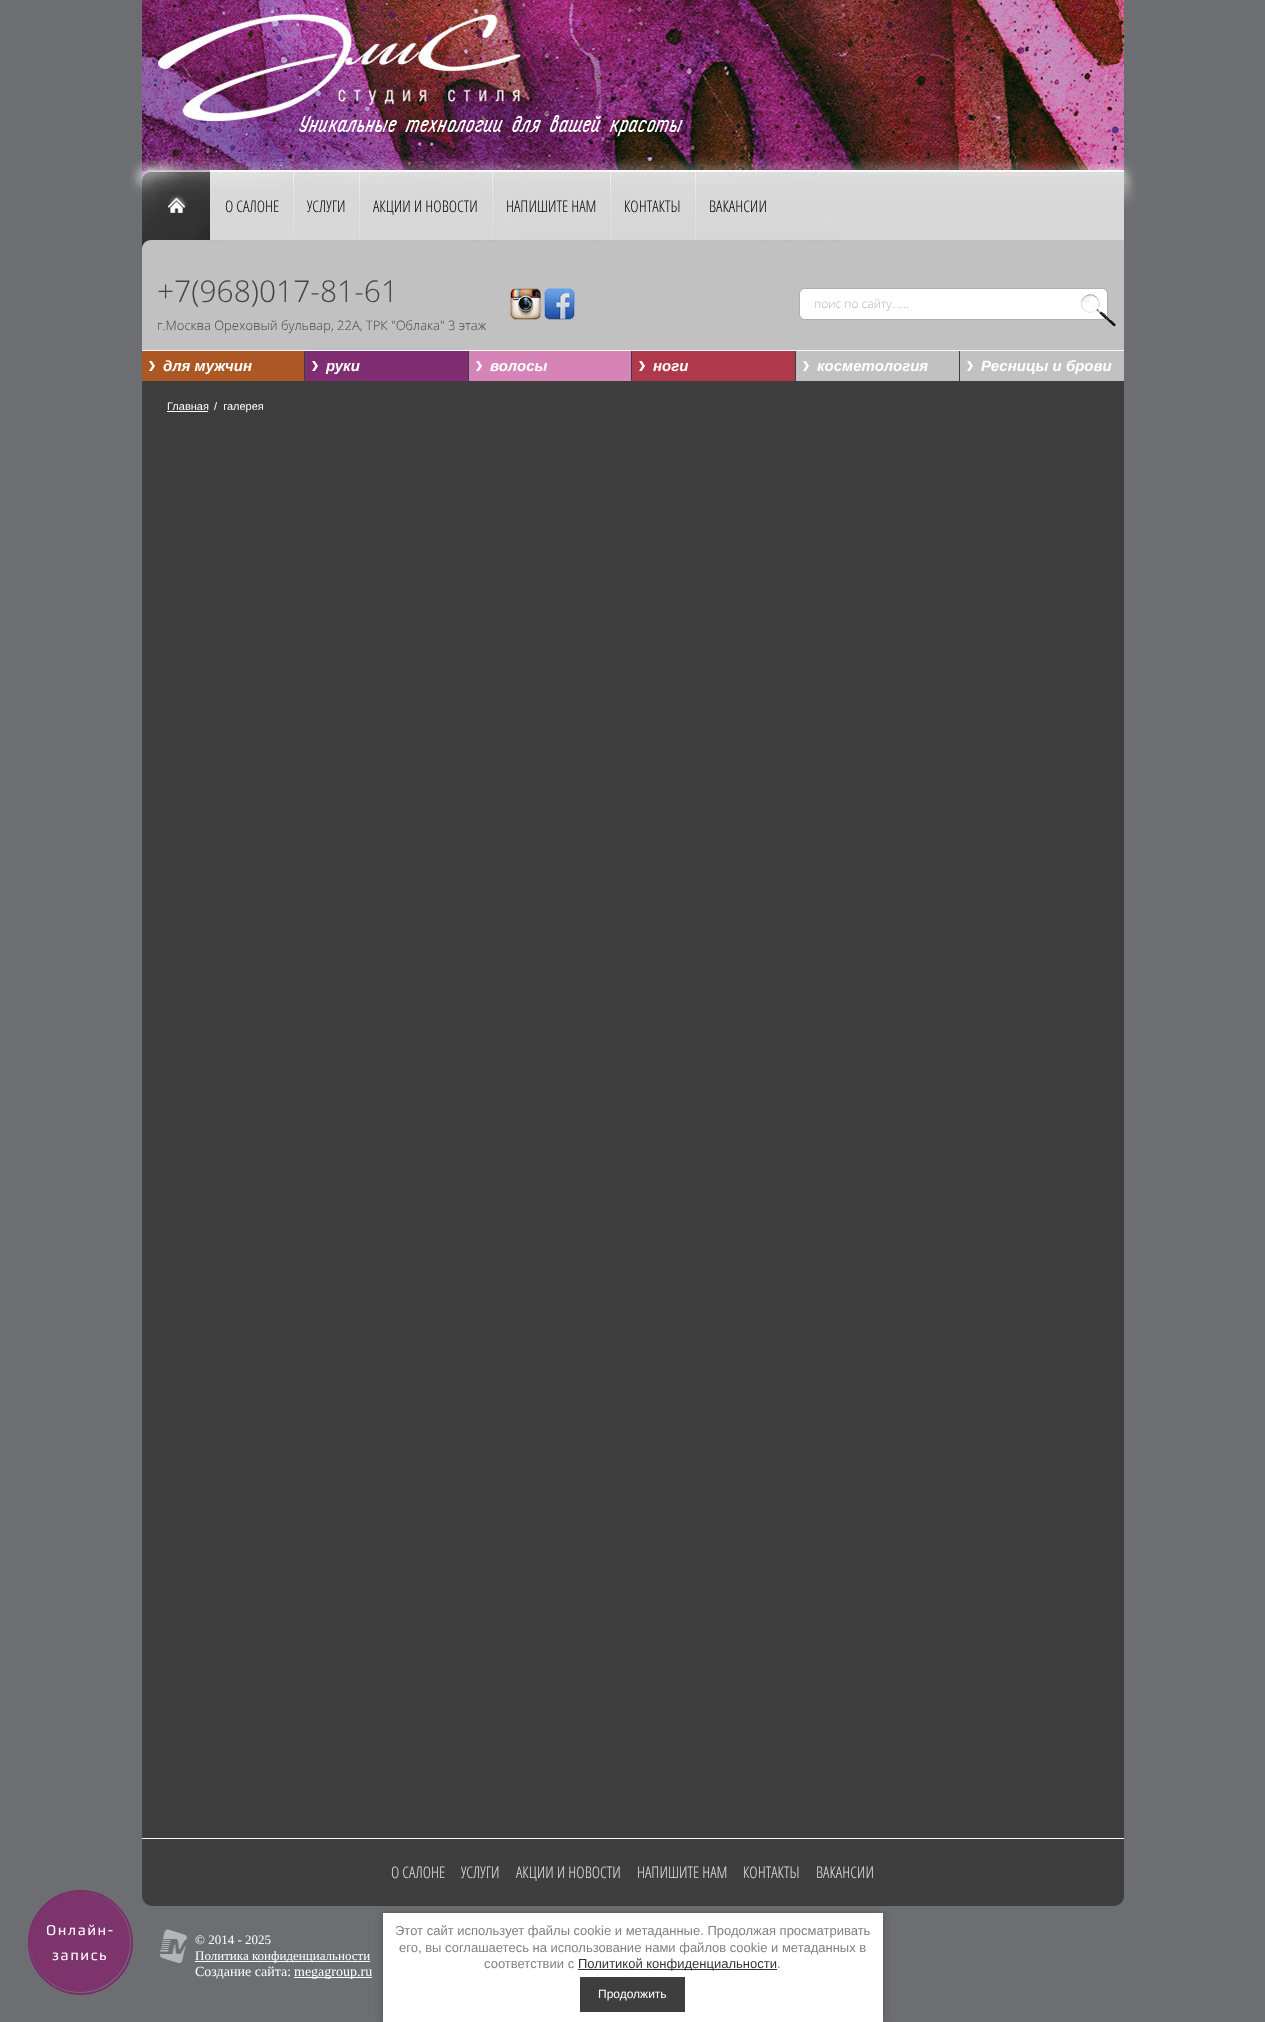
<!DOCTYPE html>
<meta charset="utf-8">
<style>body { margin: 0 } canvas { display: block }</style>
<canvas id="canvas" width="1265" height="2022"></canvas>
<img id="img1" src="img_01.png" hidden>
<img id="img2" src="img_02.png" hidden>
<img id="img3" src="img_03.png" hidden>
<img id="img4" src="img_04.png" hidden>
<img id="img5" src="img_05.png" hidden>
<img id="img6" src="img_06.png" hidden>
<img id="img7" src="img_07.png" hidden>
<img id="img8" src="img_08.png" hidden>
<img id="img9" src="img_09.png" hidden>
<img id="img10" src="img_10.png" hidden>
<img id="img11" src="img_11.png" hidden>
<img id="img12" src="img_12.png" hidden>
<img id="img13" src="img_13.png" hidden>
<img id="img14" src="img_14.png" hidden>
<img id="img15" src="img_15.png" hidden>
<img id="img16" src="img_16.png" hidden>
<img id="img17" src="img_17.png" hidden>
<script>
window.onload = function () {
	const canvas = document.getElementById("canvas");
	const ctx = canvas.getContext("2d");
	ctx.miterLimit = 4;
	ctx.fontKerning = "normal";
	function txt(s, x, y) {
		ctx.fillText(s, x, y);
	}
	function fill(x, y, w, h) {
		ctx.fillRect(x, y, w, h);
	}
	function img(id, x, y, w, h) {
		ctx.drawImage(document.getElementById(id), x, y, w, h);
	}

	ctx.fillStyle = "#6D6E71";
	fill(0, 0, 1265, 2022);
	img("img1", 129, 0, 1007, 249);
	img("img2", 299, 115, 384, 21);
	img("img3", 168, 195, 20, 18);
	img("img4", 292, 172, 2, 68);
	img("img5", 358, 172, 2, 68);
	img("img6", 491, 172, 2, 68);
	img("img7", 609, 172, 2, 68);
	img("img8", 694, 172, 2, 68);
	ctx.fillStyle = "#3E3E3E";
	ctx.beginPath();
	ctx.roundRect(142, 249, 982, 1657, [0, 0, 10, 10]);
	ctx.fill();
	ctx.fillStyle = "#C1C1C1";
	fill(142, 248, 982, 133);
	img("img9", 510, 288, 31, 32);
	img("img10", 544, 288, 31, 32);
	img("img11", 799, 288, 317, 39);
	ctx.fillStyle = "#F5F5F5";
	fill(142, 350, 982, 1);
	ctx.fillStyle = "#AB5825";
	fill(142, 351, 162, 30);
	img("img12", 149, 361, 6, 10);
	ctx.fillStyle = "#802D72";
	fill(305, 351, 163, 30);
	ctx.fillStyle = "#3E3E3E";
	fill(304, 351, 1, 30);
	img("img13", 312, 361, 6, 10);
	ctx.fillStyle = "#D684B7";
	fill(469, 351, 162, 30);
	ctx.fillStyle = "#3E3E3E";
	fill(468, 351, 1, 30);
	img("img14", 476, 361, 6, 10);
	ctx.fillStyle = "#B0384B";
	fill(632, 351, 163, 30);
	ctx.fillStyle = "#3E3E3E";
	fill(631, 351, 1, 30);
	img("img15", 639, 361, 6, 10);
	fill(795, 351, 1, 30);
	img("img16", 803, 361, 6, 10);
	fill(959, 351, 1, 30);
	img("img16", 967, 361, 6, 10);
	ctx.fillStyle = "#FFFFFF";
	fill(167, 411, 41, 1);
	ctx.fillStyle = "#7D336C";
	ctx.beginPath();
	ctx.arc(80, 1942, 50, 0, Math.PI * 2);
	ctx.fill();
	ctx.beginPath();
	ctx.arc(80.5, 1942.5, 51.5, 0, Math.PI * 2);
	ctx.strokeStyle = "rgba(129, 36, 107, 0.9)";
	ctx.lineWidth = 2;
	ctx.stroke();
	ctx.fillStyle = "#F5F5F5";
	fill(142, 1838, 982, 1);
	img("img17", 160, 1929, 27, 34);
	ctx.fillStyle = "#FFFFFF";
	fill(195, 1961, 175, 1);
	fill(294, 1977, 78, 1);
	ctx.fillStyle = "rgba(0, 0, 0, 0.23)";
	ctx.filter = "blur(5px)";
	ctx.beginPath();
	ctx.rect(383, 1914, 500, 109);
	ctx.fill();
	ctx.filter = "none";
	ctx.fillStyle = "#FFFFFF";
	fill(383, 1913, 500, 109);
	ctx.fillStyle = "#333333";
	fill(578, 1969, 199, 1);
	ctx.fillStyle = "#3E3E3E";
	fill(580, 1977, 105, 35);
	ctx.font = "300 16px Open Sans";
	ctx.fillStyle = "#000000";
	txt("О САЛОНЕ", 225, 212);
	txt("УСЛУГИ", 307, 212);
	txt("АКЦИИ И НОВОСТИ", 373, 212);
	txt("НАПИШИТЕ НАМ", 506, 212);
	txt("КОНТАКТЫ", 624, 212);
	txt("ВАКАНСИИ", 709, 212);
	ctx.font = "300 30px 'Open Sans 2'";
	ctx.fillStyle = "#454545";
	txt("+7(968)017-81-61", 157, 302);
	ctx.font = "300 13px 'Open Sans 2'";
	txt("г.Москва Ореховый бульвар, 22А, ТРК \"Облака\" 3 этаж", 157, 330);
	ctx.font = "300 12px 'Open Sans 2'";
	ctx.fillStyle = "#B3B3B3";
	txt("поис по сайту......", 814, 308);
	ctx.font = "italic bold 15px Liberation Sans";
	ctx.fillStyle = "#FFFFFF";
	txt("для мужчин", 163, 371);
	txt("руки", 326, 371);
	txt("волосы", 490, 371);
	txt("ноги", 653, 371);
	txt("косметология", 817, 371);
	txt("Ресницы и брови", 981, 371);
	ctx.font = "11px Liberation Sans";
	txt("Главная", 167, 410);
	txt("/  галерея", 214, 410);
	ctx.letterSpacing = "1.5px";
	ctx.font = "15px Play";
	txt("Онлайн-", 46, 1935);
	txt("запись", 52, 1960);
	ctx.letterSpacing = "0px";
	ctx.font = "300 16px Open Sans";
	ctx.fillStyle = "#E2E2E2";
	txt("О САЛОНЕ", 391, 1878);
	txt("УСЛУГИ", 461, 1878);
	txt("АКЦИИ И НОВОСТИ", 516, 1878);
	txt("НАПИШИТЕ НАМ", 637, 1878);
	txt("КОНТАКТЫ", 743, 1878);
	txt("ВАКАНСИИ", 816, 1878);
	ctx.font = "13px Liberation Serif";
	ctx.fillStyle = "#FFFFFF";
	txt("© 2014 - 2025", 195, 1944);
	txt("Политика конфиденциальности", 195, 1960);
	ctx.font = "14px Liberation Serif";
	txt("Создание сайта:", 195, 1976);
	txt("megagroup.ru", 294, 1976);
	ctx.font = "13px Liberation Sans";
	ctx.fillStyle = "#808080";
	txt("Этот сайт использует файлы cookie и метаданные. Продолжая просматривать", 395, 1935);
	txt("его, вы соглашаетесь на использование нами файлов cookie и метаданных в", 399, 1952);
	txt("соответствии с", 484, 1968);
	ctx.fillStyle = "#333333";
	txt("Политикой конфиденциальности", 578, 1968);
	ctx.fillStyle = "#808080";
	txt(".", 777, 1968);
	ctx.font = "12px Liberation Sans";
	ctx.fillStyle = "#FFFFFF";
	txt("Продолжить", 598, 1998);
};
</script>
